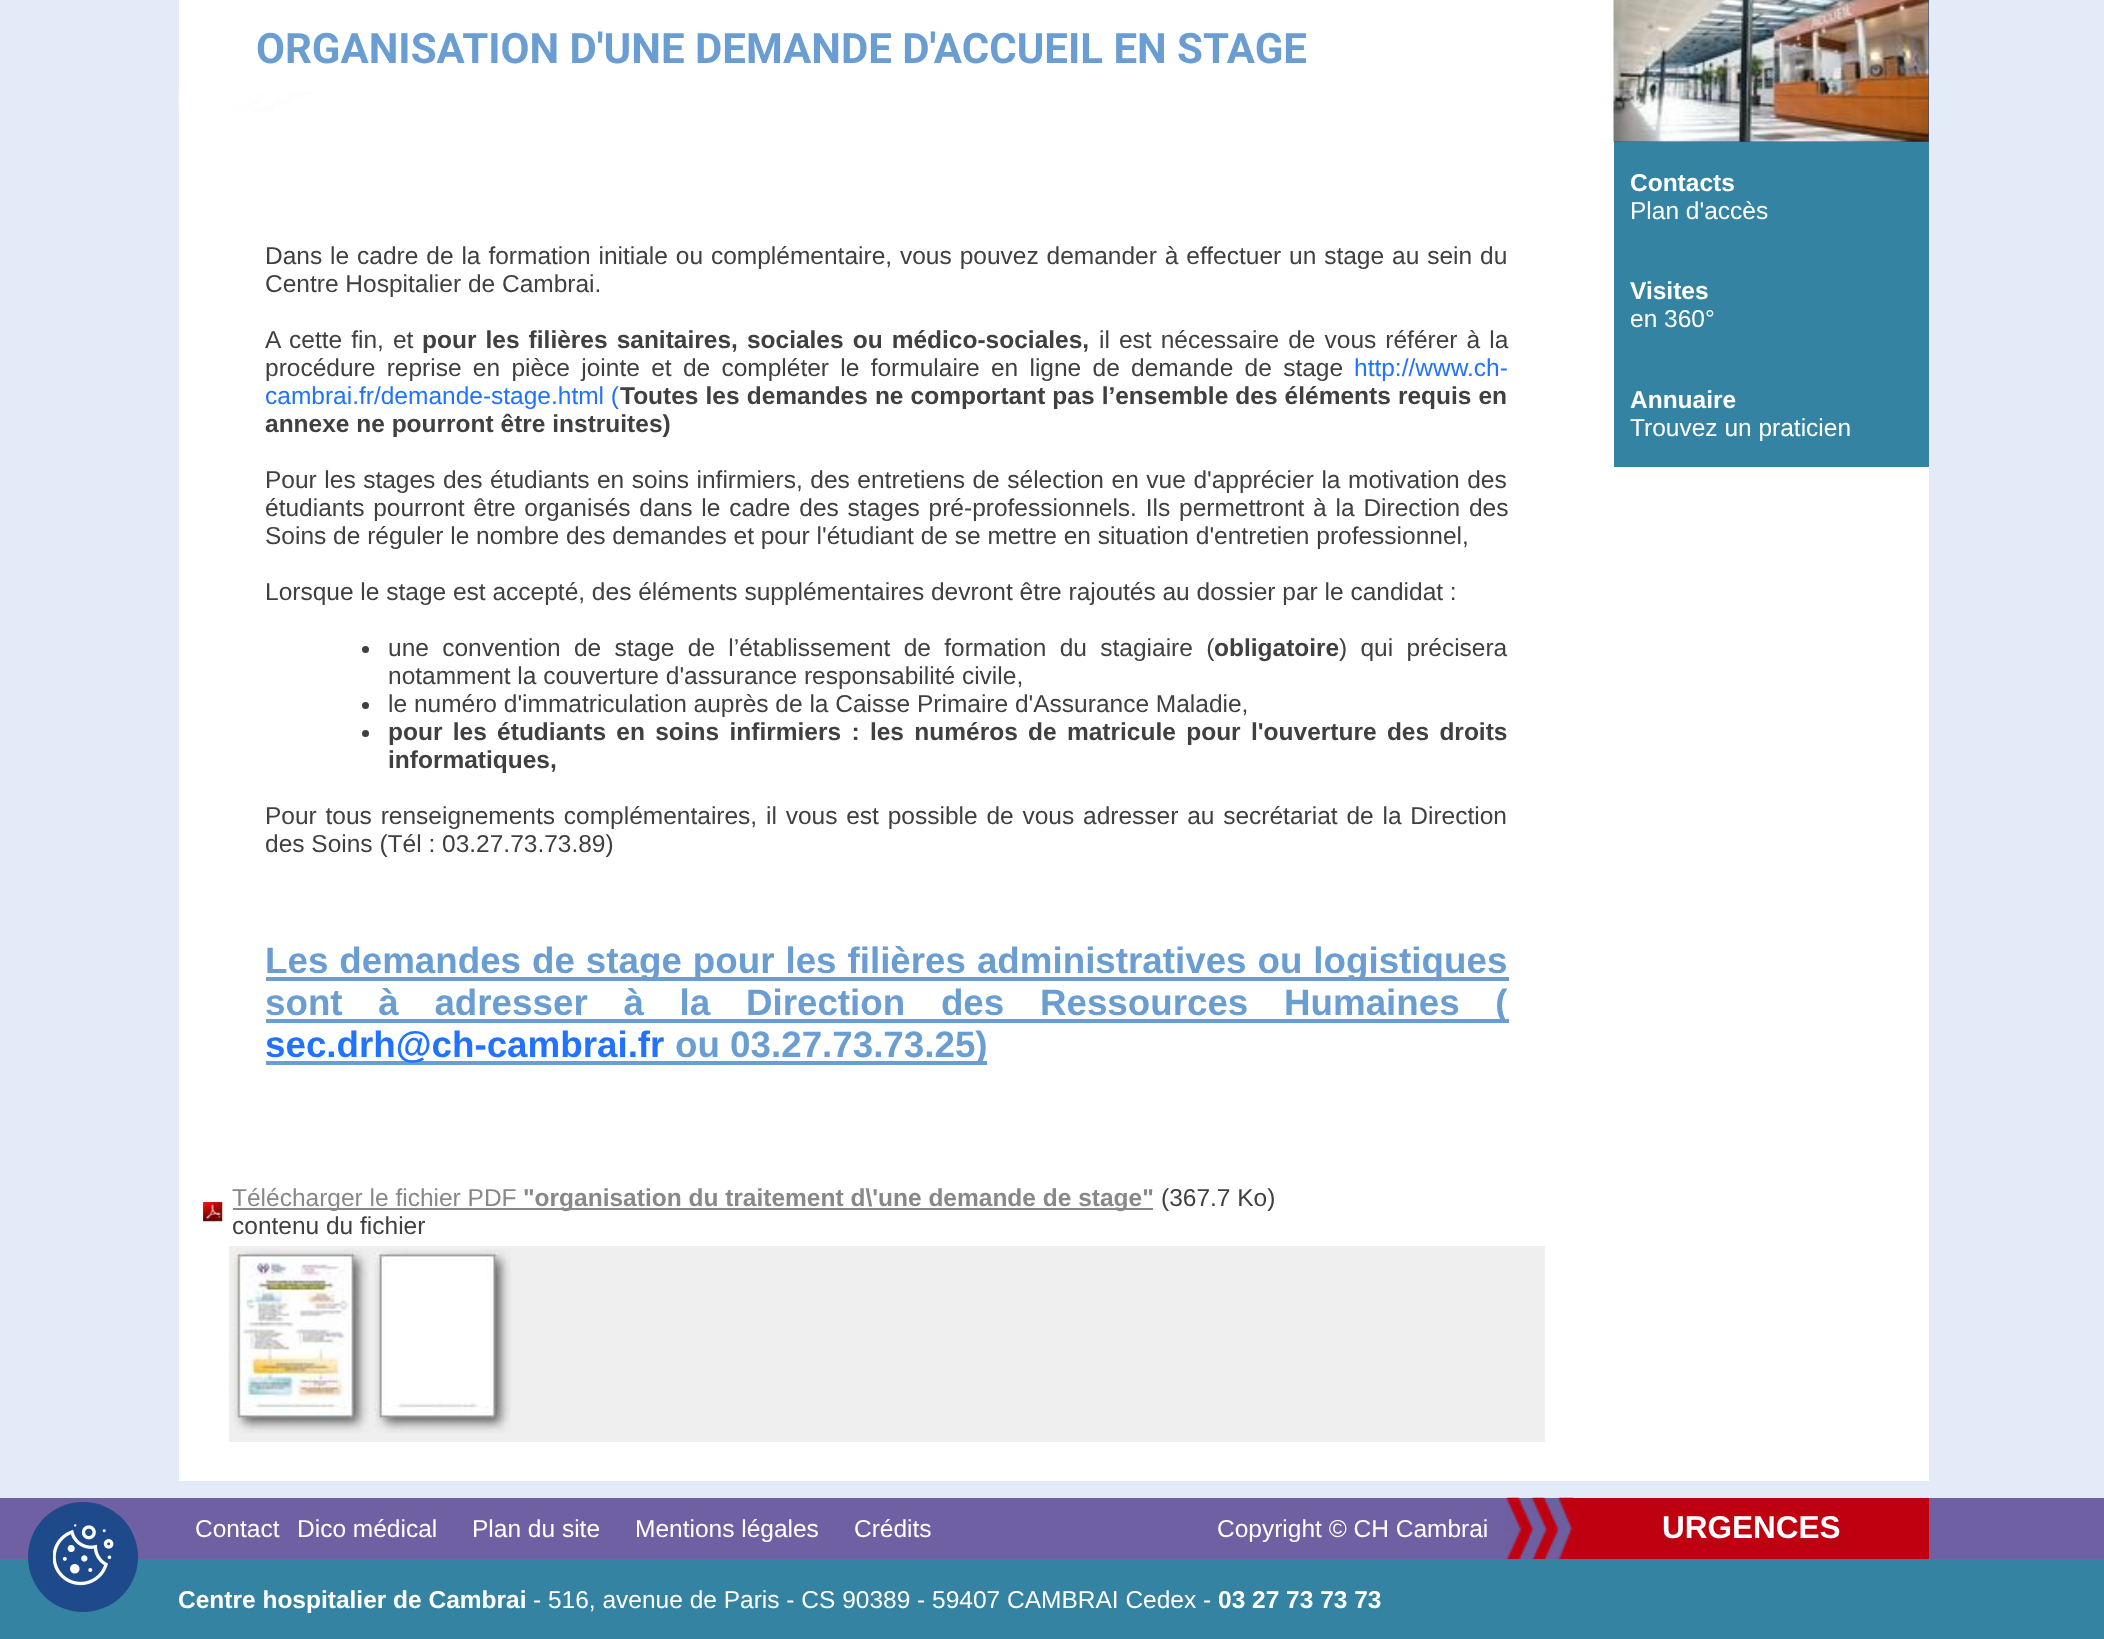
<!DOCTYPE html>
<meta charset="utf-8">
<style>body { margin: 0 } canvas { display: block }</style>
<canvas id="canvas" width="2104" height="1639"></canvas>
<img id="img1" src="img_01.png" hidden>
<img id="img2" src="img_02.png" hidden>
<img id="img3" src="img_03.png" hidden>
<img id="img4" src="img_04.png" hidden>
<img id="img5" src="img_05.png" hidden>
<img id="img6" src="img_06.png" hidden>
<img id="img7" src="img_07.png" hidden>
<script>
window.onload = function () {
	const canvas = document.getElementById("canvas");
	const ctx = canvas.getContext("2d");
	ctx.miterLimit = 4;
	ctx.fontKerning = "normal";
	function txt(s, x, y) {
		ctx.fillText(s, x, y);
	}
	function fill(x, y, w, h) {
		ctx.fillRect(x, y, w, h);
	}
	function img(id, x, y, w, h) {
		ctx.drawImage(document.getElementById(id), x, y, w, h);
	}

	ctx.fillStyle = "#E3EBF8";
	fill(0, 0, 2104, 1639);
	ctx.fillStyle = "#FFFFFF";
	fill(179, 0, 1750, 1481);
	img("img1", 178, 91, 135, 21);
	ctx.fillStyle = "#404040";
	ctx.beginPath();
	ctx.arc(365.5, 649.5, 3.5, 0, Math.PI * 2);
	ctx.fill();
	ctx.beginPath();
	ctx.arc(365.5, 705.5, 3.5, 0, Math.PI * 2);
	ctx.fill();
	ctx.beginPath();
	ctx.arc(365.5, 733.5, 3.5, 0, Math.PI * 2);
	ctx.fill();
	ctx.fillStyle = "#6A9DD2";
	fill(266, 977, 1243, 4);
	fill(266, 1019, 1243, 4);
	fill(266, 1061, 721, 4);
	img("img2", 203, 1202, 20, 20);
	ctx.fillStyle = "#888888";
	fill(233, 1208, 920, 2);
	ctx.fillStyle = "#EFEFEF";
	fill(229, 1246, 1316, 196);
	img("img3", 232, 1249, 137, 184);
	img("img4", 374, 1249, 137, 184);
	ctx.fillStyle = "#1E4A8B";
	fill(1614, 0, 315, 142);
	img("img5", 1613, 0, 316, 142);
	ctx.fillStyle = "#3483A2";
	fill(1614, 142, 315, 325);
	ctx.fillStyle = "#6F60A3";
	fill(0, 1498, 2104, 61);
	ctx.fillStyle = "#3483A2";
	fill(0, 1559, 2104, 80);
	ctx.save();
	ctx.beginPath();
	ctx.roundRect(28, 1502, 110, 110, 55);
	ctx.clip();
	ctx.fillStyle = "#545454";
	ctx.filter = "blur(87.5px)";
	ctx.beginPath();
	ctx.rect(28, 1502, 110, 110);
	ctx.fill();
	ctx.filter = "none";
	ctx.restore();
	ctx.fillStyle = "#1E4A8B";
	ctx.beginPath();
	ctx.arc(83, 1557, 55, 0, Math.PI * 2);
	ctx.fill();
	img("img6", 53, 1524, 61, 62);
	img("img7", 1505, 1497, 69, 62);
	ctx.fillStyle = "#BF0010";
	fill(1573, 1498, 356, 61);
	ctx.font = "bold 42px Roboto";
	ctx.fillStyle = "#6A9DD2";
	txt("ORGANISATION D'UNE DEMANDE D'ACCUEIL EN STAGE", 256, 63);
	ctx.wordSpacing = "1.1px";
	ctx.font = "24.5px Liberation Sans";
	ctx.fillStyle = "#404040";
	txt("Dans le cadre de la formation initiale ou complémentaire, vous pouvez demander à effectuer", 265, 264);
	txt("un stage au sein du", 1289, 264);
	ctx.wordSpacing = "0px";
	txt("Centre Hospitalier de Cambrai.", 265, 292);
	ctx.wordSpacing = "2.25px";
	txt("A cette fin, et", 265, 348);
	ctx.font = "bold 24.5px Liberation Sans";
	txt("pour les filières sanitaires, sociales ou médico-sociales,", 422, 348);
	ctx.font = "24.5px Liberation Sans";
	txt("il est nécessaire de vous référer à la", 1099, 348);
	ctx.wordSpacing = "4.5px";
	txt("procédure reprise en pièce jointe et de compléter le formulaire en ligne de demande de stage", 265, 376);
	ctx.wordSpacing = "0px";
	ctx.fillStyle = "#2173FF";
	txt("http://www.ch-", 1354, 376);
	txt("cambrai.fr/demande-stage.html (", 265, 404);
	ctx.wordSpacing = "0.25px";
	ctx.font = "bold 24.5px Liberation Sans";
	ctx.fillStyle = "#404040";
	txt("Toutes les demandes ne comportant pas l’ensemble des éléments requis en", 620, 404);
	ctx.wordSpacing = "0px";
	txt("annexe ne pourront être instruites)", 265, 432);
	ctx.wordSpacing = "0.75px";
	ctx.font = "24.5px Liberation Sans";
	txt("Pour les stages des étudiants en soins infirmiers, des entretiens de sélection en vue d'apprécier la motivation des", 265, 488);
	ctx.wordSpacing = "2px";
	txt("étudiants pourront être organisés dans le cadre des stages pré-professionnels. Ils permettront à la Direction des", 265, 516);
	ctx.wordSpacing = "0px";
	txt("Soins de réguler le nombre des demandes et pour l'étudiant de se mettre en situation d'entretien professionnel,", 265, 544);
	txt("Lorsque le stage est accepté, des éléments supplémentaires devront être rajoutés au dossier par le candidat :", 265, 600);
	ctx.wordSpacing = "6.5px";
	txt("une convention de stage de l’établissement de formation du stagiaire (", 388, 656);
	ctx.wordSpacing = "0px";
	ctx.font = "bold 24.5px Liberation Sans";
	txt("obligatoire", 1214, 656);
	ctx.wordSpacing = "6.5px";
	ctx.font = "24.5px Liberation Sans";
	txt(") qui précisera", 1339, 656);
	ctx.wordSpacing = "0px";
	txt("notamment la couverture d'assurance responsabilité civile,", 388, 684);
	txt("le numéro d'immatriculation auprès de la Caisse Primaire d'Assurance Maladie,", 388, 712);
	ctx.wordSpacing = "3.5px";
	ctx.font = "bold 24.5px Liberation Sans";
	txt("pour les étudiants en soins infirmiers : les numéros de matricule pour l'ouverture des droits", 388, 740);
	ctx.wordSpacing = "0px";
	txt("informatiques,", 388, 768);
	ctx.wordSpacing = "2px";
	ctx.font = "24.5px Liberation Sans";
	txt("Pour tous renseignements complémentaires, il vous est possible de vous adresser au secrétariat de la Direction", 265, 824);
	ctx.wordSpacing = "0px";
	txt("des Soins (Tél : 03.27.73.73.89)", 265, 852);
	ctx.wordSpacing = "0.75px";
	ctx.font = "bold 36.75px Liberation Sans";
	ctx.fillStyle = "#6A9DD2";
	txt("Les demandes de stage pour les filières administratives ou logistiques", 265, 973);
	ctx.wordSpacing = "25.5px";
	txt("sont à adresser à la Direction des Ressources Humaines (", 265, 1015);
	ctx.wordSpacing = "0px";
	ctx.fillStyle = "#2173FF";
	txt("sec.drh@ch-cambrai.fr", 265, 1057);
	ctx.fillStyle = "#6A9DD2";
	txt("ou 03.27.73.73.25)", 675, 1057);
	ctx.font = "24.5px Liberation Sans";
	ctx.fillStyle = "#888888";
	txt("Télécharger le fichier PDF", 232, 1206);
	ctx.font = "bold 24.5px Liberation Sans";
	txt("\"organisation du traitement d\\'une demande de stage\"", 523, 1206);
	ctx.font = "24.5px Liberation Sans";
	ctx.fillStyle = "#404040";
	txt("(367.7 Ko)", 1161, 1206);
	txt("contenu du fichier", 232, 1234);
	ctx.font = "bold 24.5px Liberation Sans";
	ctx.fillStyle = "#FFFFFF";
	txt("Contacts", 1630, 191);
	ctx.font = "24.5px Liberation Sans";
	txt("Plan d'accès", 1630, 219);
	ctx.font = "bold 24.5px Liberation Sans";
	txt("Visites", 1630, 299);
	ctx.font = "24.5px Liberation Sans";
	txt("en 360°", 1630, 327);
	ctx.font = "bold 24.5px Liberation Sans";
	txt("Annuaire", 1630, 408);
	ctx.font = "24.5px Liberation Sans";
	txt("Trouvez un praticien", 1630, 436);
	txt("Contact", 195, 1537);
	txt("Dico médical", 297, 1537);
	txt("Plan du site", 472, 1537);
	txt("Mentions légales", 635, 1537);
	txt("Crédits", 854, 1537);
	txt("Copyright © CH Cambrai", 1217, 1537);
	ctx.font = "bold 31.5px Liberation Sans";
	txt("URGENCES", 1662, 1538);
	ctx.font = "bold 24.5px Liberation Sans";
	txt("Centre hospitalier de Cambrai", 178, 1608);
	ctx.font = "24.5px Liberation Sans";
	txt("- 516, avenue de Paris - CS 90389 - 59407 CAMBRAI Cedex -", 533, 1608);
	ctx.font = "bold 24.5px Liberation Sans";
	txt("03 27 73 73 73", 1218, 1608);
};
</script>
